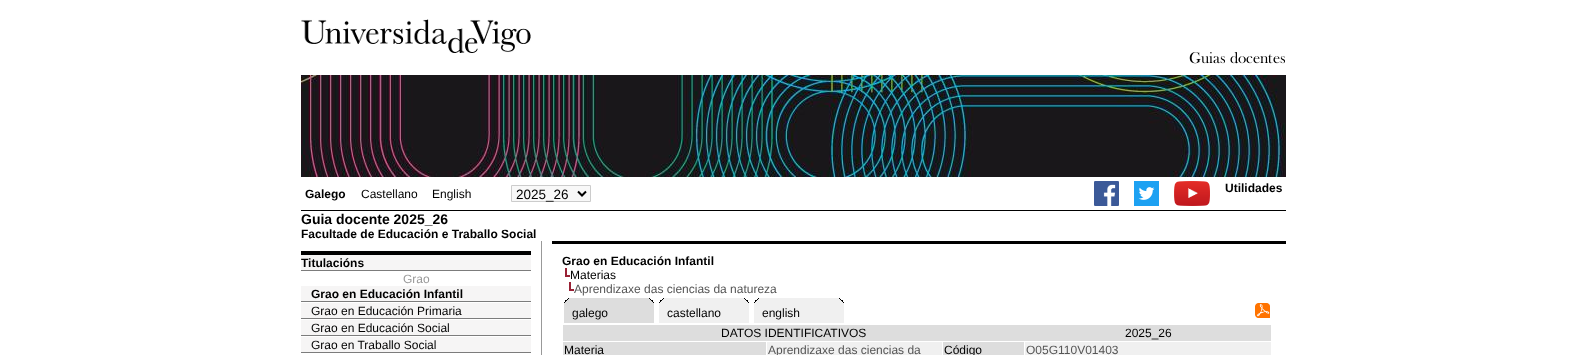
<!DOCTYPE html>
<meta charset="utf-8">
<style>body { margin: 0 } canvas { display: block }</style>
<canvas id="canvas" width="1587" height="355"></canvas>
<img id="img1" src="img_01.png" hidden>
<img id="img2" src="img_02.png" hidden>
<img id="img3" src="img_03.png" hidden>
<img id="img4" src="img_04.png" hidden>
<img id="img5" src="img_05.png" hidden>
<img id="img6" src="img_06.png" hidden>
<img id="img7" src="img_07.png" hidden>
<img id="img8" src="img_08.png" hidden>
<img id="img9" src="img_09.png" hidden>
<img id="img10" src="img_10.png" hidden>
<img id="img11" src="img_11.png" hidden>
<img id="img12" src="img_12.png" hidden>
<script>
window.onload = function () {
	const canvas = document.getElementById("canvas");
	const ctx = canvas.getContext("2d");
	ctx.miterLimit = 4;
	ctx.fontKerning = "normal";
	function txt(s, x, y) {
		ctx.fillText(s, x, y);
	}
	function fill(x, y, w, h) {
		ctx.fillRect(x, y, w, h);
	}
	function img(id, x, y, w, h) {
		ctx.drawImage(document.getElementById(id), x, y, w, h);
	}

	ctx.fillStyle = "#FFFFFF";
	fill(0, 0, 1587, 355);
	img("img1", 301, 19, 230, 34);
	img("img2", 1189, 52, 96, 12);
	img("img3", 301, 75, 985, 102);
	ctx.fillStyle = "#000000";
	fill(301, 210, 985, 1);
	img("img4", 1094, 181, 25, 25);
	img("img5", 1134, 181, 25, 25);
	img("img6", 1174, 181, 36, 25);
	ctx.fillStyle = "#F8F8F8";
	ctx.beginPath();
	ctx.rect(511.5, 185.5, 79, 16);
	ctx.fill();
	ctx.strokeStyle = "#CCCCCC";
	ctx.stroke();
	ctx.beginPath();
	ctx.moveTo(578, 191.5);
	ctx.lineTo(582, 195.5);
	ctx.lineTo(586, 191.5);
	ctx.strokeStyle = "#000000";
	ctx.lineWidth = 2;
	ctx.stroke();
	ctx.fillStyle = "#F6F5F5";
	fill(301, 255, 230, 15);
	ctx.fillStyle = "#000000";
	fill(301, 251, 230, 4);
	ctx.fillStyle = "#7C7C7C";
	fill(301, 270, 230, 1);
	ctx.fillStyle = "#F6F5F5";
	fill(301, 286, 230, 15);
	ctx.fillStyle = "#7C7C7C";
	fill(301, 301, 230, 1);
	ctx.fillStyle = "#F6F5F5";
	fill(301, 303, 230, 15);
	ctx.fillStyle = "#7C7C7C";
	fill(301, 318, 230, 1);
	ctx.fillStyle = "#F6F5F5";
	fill(301, 320, 230, 15);
	ctx.fillStyle = "#7C7C7C";
	fill(301, 335, 230, 1);
	ctx.fillStyle = "#F6F5F5";
	fill(301, 337, 230, 15);
	ctx.fillStyle = "#7C7C7C";
	fill(301, 352, 230, 1);
	ctx.fillStyle = "#999999";
	fill(541, 241, 1, 114);
	ctx.fillStyle = "#000000";
	fill(552, 241, 734, 3);
	img("img7", 565, 268, 5, 9);
	img("img7", 569, 282, 5, 9);
	img("img8", 564, 298, 5, 5);
	ctx.fillStyle = "#DDDDDD";
	fill(569, 298, 80, 5);
	img("img9", 649, 298, 5, 5);
	fill(564, 303, 90, 20);
	img("img10", 659, 298, 5, 5);
	ctx.fillStyle = "#F0F0F0";
	fill(664, 298, 80, 5);
	img("img11", 744, 298, 5, 5);
	fill(659, 303, 90, 20);
	img("img10", 754, 298, 5, 5);
	fill(759, 298, 80, 5);
	img("img11", 839, 298, 5, 5);
	fill(754, 303, 90, 20);
	img("img12", 1255, 303, 15, 15);
	ctx.fillStyle = "#DDDDDD";
	fill(563, 325, 708, 16);
	fill(563, 342, 203, 13);
	ctx.fillStyle = "#F0F0F0";
	fill(767, 342, 175, 13);
	ctx.fillStyle = "#DDDDDD";
	fill(943, 342, 81, 13);
	ctx.fillStyle = "#F0F0F0";
	fill(1025, 342, 246, 13);
	ctx.font = "bold 12px Liberation Sans";
	ctx.fillStyle = "#000000";
	txt("Utilidades", 1225, 192);
	txt("Galego", 305, 198);
	ctx.font = "12px Liberation Sans";
	txt("Castellano", 361, 198);
	txt("English", 432, 198);
	ctx.font = "13.5px Liberation Sans";
	txt("2025_26", 516, 199);
	ctx.font = "bold 14px Liberation Sans";
	txt("Guia docente 2025_26", 301, 224);
	ctx.font = "bold 12px Liberation Sans";
	txt("Facultade de Educación e Traballo Social", 301, 238);
	txt("Titulacións", 301, 267);
	ctx.font = "12px Liberation Sans";
	ctx.fillStyle = "#999999";
	txt("Grao", 403, 283);
	ctx.font = "bold 12px Liberation Sans";
	ctx.fillStyle = "#000000";
	txt("Grao en Educación Infantil", 311, 298);
	ctx.font = "12px Liberation Sans";
	txt("Grao en Educación Primaria", 311, 315);
	txt("Grao en Educación Social", 311, 332);
	txt("Grao en Traballo Social", 311, 349);
	ctx.font = "bold 12px Liberation Sans";
	txt("Grao en Educación Infantil", 562, 265);
	ctx.font = "12px Liberation Sans";
	txt("Materias", 570, 279);
	ctx.fillStyle = "#555555";
	txt("Aprendizaxe das ciencias da natureza", 574, 293);
	ctx.fillStyle = "#000000";
	txt("galego", 572, 317);
	txt("castellano", 667, 317);
	txt("english", 762, 317);
	txt("DATOS IDENTIFICATIVOS", 721, 337);
	txt("2025_26", 1125, 337);
	txt("Materia", 564, 354);
	ctx.fillStyle = "#555555";
	txt("Aprendizaxe das ciencias da", 768, 354);
	ctx.fillStyle = "#000000";
	txt("Código", 944, 354);
	ctx.fillStyle = "#555555";
	txt("O05G110V01403", 1026, 354);
};
</script>
